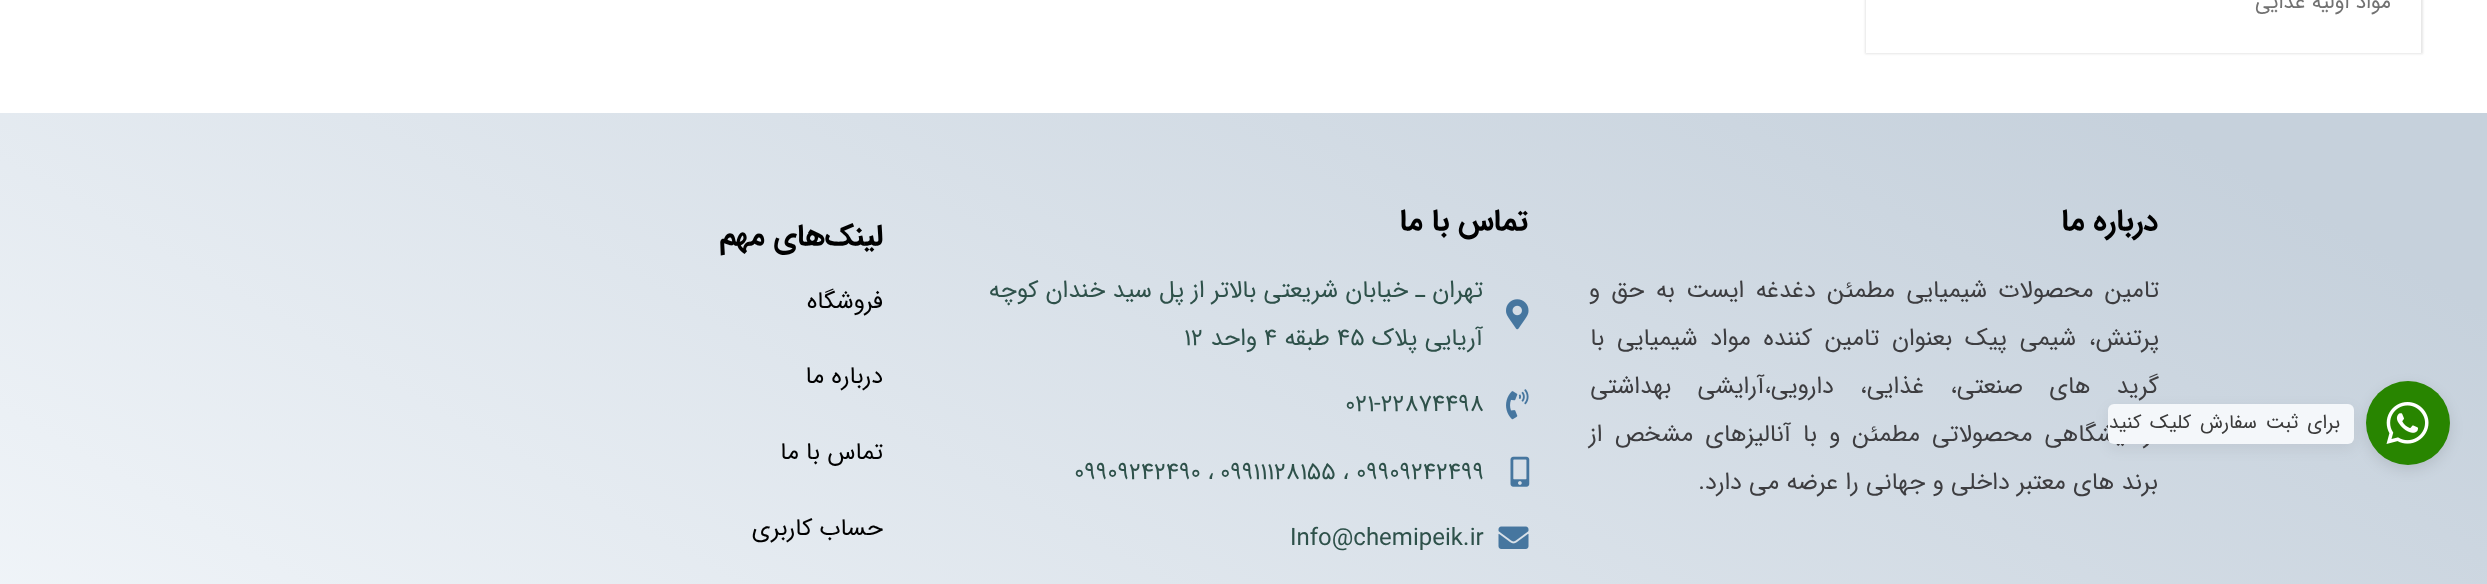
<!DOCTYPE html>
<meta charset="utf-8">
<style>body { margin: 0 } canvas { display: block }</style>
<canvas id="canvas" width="2487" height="584"></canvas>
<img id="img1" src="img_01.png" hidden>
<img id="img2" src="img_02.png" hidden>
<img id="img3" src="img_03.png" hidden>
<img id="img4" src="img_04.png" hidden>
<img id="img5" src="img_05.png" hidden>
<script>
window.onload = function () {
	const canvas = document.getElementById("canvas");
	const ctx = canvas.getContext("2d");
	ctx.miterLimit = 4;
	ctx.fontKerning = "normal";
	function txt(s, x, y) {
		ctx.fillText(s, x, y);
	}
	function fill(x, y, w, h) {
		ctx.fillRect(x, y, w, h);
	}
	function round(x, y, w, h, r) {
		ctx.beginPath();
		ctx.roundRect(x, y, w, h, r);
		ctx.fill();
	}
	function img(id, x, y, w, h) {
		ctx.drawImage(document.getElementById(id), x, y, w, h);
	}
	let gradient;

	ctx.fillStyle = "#FFFFFF";
	fill(0, 0, 2487, 584);
	ctx.save();
	ctx.beginPath();
	ctx.moveTo(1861, 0);
	ctx.lineTo(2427, 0);
	ctx.lineTo(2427, 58);
	ctx.lineTo(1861, 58);
	ctx.closePath();
	ctx.moveTo(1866, -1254);
	ctx.lineTo(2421, -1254);
	ctx.lineTo(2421, 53);
	ctx.lineTo(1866, 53);
	ctx.closePath();
	ctx.clip("evenodd");
	ctx.fillStyle = "#E6E6E6";
	ctx.filter = "blur(1px)";
	ctx.beginPath();
	ctx.rect(1865, -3, 558, 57);
	ctx.fill();
	ctx.filter = "none";
	ctx.restore();
	gradient = ctx.createLinearGradient(1673, -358, 814, 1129);
	gradient.addColorStop(0.1, "#C6D1DC");
	gradient.addColorStop(1, "#F1F5F9");
	ctx.fillStyle = gradient;
	fill(0, 113, 2487, 471);
	img("img1", 1506, 299, 23, 31);
	img("img2", 1506, 389, 23, 31);
	img("img3", 1510, 456, 20, 31);
	img("img4", 1498, 526, 31, 23);
	ctx.fillStyle = "rgba(0, 0, 0, 0.1)";
	ctx.filter = "blur(7px)";
	ctx.beginPath();
	ctx.roundRect(2366, 386, 84, 84, 42);
	ctx.fill();
	ctx.filter = "none";
	ctx.fillStyle = "#288500";
	ctx.beginPath();
	ctx.arc(2408, 423, 42, 0, Math.PI * 2);
	ctx.fill();
	img("img5", 2386, 402, 43, 42);
	ctx.fillStyle = "rgba(0, 0, 0, 0.06)";
	ctx.filter = "blur(7px)";
	ctx.beginPath();
	ctx.roundRect(2108, 408, 246, 41, 6);
	ctx.fill();
	ctx.filter = "none";
	ctx.direction = "rtl";
	ctx.font = "21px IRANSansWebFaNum";
	ctx.fillStyle = "#727272";
	txt("مواد اولیه غذایی", 2391, 8);
	ctx.font = "bold 30px IRANSansWebFaNum";
	ctx.fillStyle = "#000000";
	txt("درباره ما", 2158, 230);
	ctx.wordSpacing = "4.25px";
	ctx.font = "24px IRANSansWebFaNum";
	ctx.fillStyle = "#3D3D40";
	txt("تامین محصولات شیمیایی مطمئن دغدغه ایست به حق و", 2159, 297);
	ctx.wordSpacing = "5.5px";
	txt("پرتنش، شیمی پیک بعنوان تامین کننده مواد شیمیایی با", 2159, 345);
	ctx.wordSpacing = "19px";
	txt("گرید های صنعتی، غذایی، دارویی،آرایشی بهداشتی", 2159, 393);
	ctx.wordSpacing = "4.75px";
	txt("آزمایشگاهی محصولاتی مطمئن و با آنالیزهای مشخص از", 2159, 441);
	ctx.wordSpacing = "0px";
	txt("برند های معتبر داخلی و جهانی را عرضه می دارد.", 2158, 489);
	ctx.font = "bold 30px IRANSansWebFaNum";
	ctx.fillStyle = "#000000";
	txt("تماس با ما", 1528, 230);
	ctx.font = "24px IRANSansWebFaNum";
	ctx.fillStyle = "#2E514A";
	txt("تهران ـ خیابان شریعتی بالاتر از پل سید خندان کوچه", 1483, 297);
	txt("آریایی پلاک", 1483, 345);
	ctx.direction = "ltr";
	txt("۴۵", 1337, 345);
	ctx.direction = "rtl";
	txt("طبقه", 1330, 345);
	ctx.direction = "ltr";
	txt("۴", 1264, 345);
	ctx.direction = "rtl";
	txt("واحد", 1257, 345);
	ctx.direction = "ltr";
	txt("۱۲", 1184, 345);
	txt("۰۲۱-۲۲۸۷۴۴۹۸", 1345, 411);
	txt("09909242499", 1356, 479);
	ctx.font = "24px DejaVu Sans";
	txt("،", 1342, 479);
	ctx.font = "24px IRANSansWebFaNum";
	txt("09911128155", 1220, 479);
	ctx.font = "24px DejaVu Sans";
	txt("،", 1207, 479);
	ctx.font = "24px IRANSansWebFaNum";
	txt("09909242490", 1074, 479);
	txt("Info@chemipeik.ir", 1290, 545);
	ctx.direction = "rtl";
	ctx.font = "bold 30px IRANSansWebFaNum";
	ctx.fillStyle = "#000000";
	txt("لینک‌های مهم", 883, 245);
	ctx.font = "24px IRANSansWebFaNum";
	txt("فروشگاه", 883, 308);
	txt("درباره ما", 883, 383);
	txt("تماس با ما", 883, 459);
	txt("حساب کاربری", 883, 535);
	ctx.fillStyle = "#F4F7FA";
	round(2108, 404, 246, 40, 6);
	ctx.letterSpacing = "-0.6px";
	ctx.wordSpacing = "3.5px";
	ctx.font = "19.5px IRANSansWebFaNum";
	ctx.fillStyle = "#3A3A3A";
	txt("برای ثبت سفارش کلیک کنید", 2340, 428);
};
</script>
